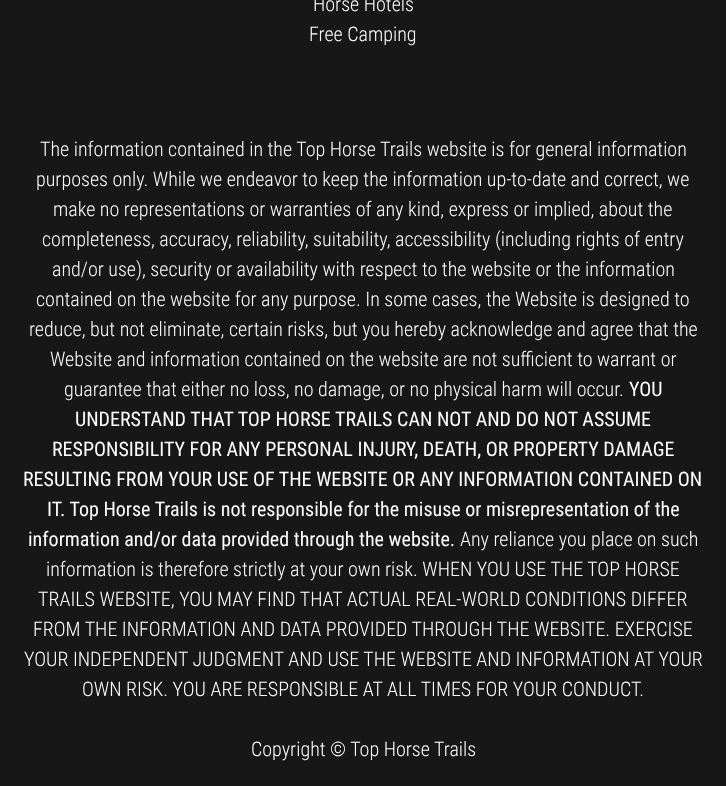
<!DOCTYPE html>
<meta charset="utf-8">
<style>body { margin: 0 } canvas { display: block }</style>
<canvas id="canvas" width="726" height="786"></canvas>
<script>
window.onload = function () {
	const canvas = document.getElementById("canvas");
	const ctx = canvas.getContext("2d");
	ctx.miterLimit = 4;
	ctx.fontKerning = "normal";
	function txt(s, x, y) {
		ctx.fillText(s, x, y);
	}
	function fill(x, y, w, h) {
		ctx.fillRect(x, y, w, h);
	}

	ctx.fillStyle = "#171717";
	fill(0, 0, 726, 786);
	ctx.font = "300 20px Roboto Condensed";
	ctx.fillStyle = "#FFFFFF";
	txt("Horse Hotels", 313, 11);
	txt("Free Camping", 309, 41);
	txt("The information contained in the Top Horse Trails website is for general information", 40, 156);
	txt("purposes only. While we endeavor to keep the information up-to-date and correct, we", 36, 186);
	txt("make no representations or warranties of any kind, express or implied, about the", 53, 216);
	txt("completeness, accuracy, reliability, suitability, accessibility (including rights of entry", 42, 246);
	txt("and/or use), security or availability with respect to the website or the information", 52, 276);
	txt("contained on the website for any purpose. In some cases, the Website is designed to", 36, 306);
	txt("reduce, but not eliminate, certain risks, but you hereby acknowledge and agree that the", 29, 336);
	txt("Website and information contained on the website are not sufficient to warrant or", 50, 366);
	txt("guarantee that either no loss, no damage, or no physical harm will occur.", 64, 396);
	ctx.font = "20px Roboto Condensed";
	txt("YOU", 629, 396);
	txt("UNDERSTAND THAT TOP HORSE TRAILS CAN NOT AND DO NOT ASSUME", 75, 426);
	txt("RESPONSIBILITY FOR ANY PERSONAL INJURY, DEATH, OR PROPERTY DAMAGE", 52, 456);
	txt("RESULTING FROM YOUR USE OF THE WEBSITE OR ANY INFORMATION CONTAINED ON", 23, 486);
	txt("IT. Top Horse Trails is not responsible for the misuse or misrepresentation of the", 47, 516);
	txt("information and/or data provided through the website.", 28, 546);
	ctx.font = "300 20px Roboto Condensed";
	txt("Any reliance you place on such", 460, 546);
	txt("information is therefore strictly at your own risk. WHEN YOU USE THE TOP HORSE", 46, 576);
	txt("TRAILS WEBSITE, YOU MAY FIND THAT ACTUAL REAL-WORLD CONDITIONS DIFFER", 38, 606);
	txt("FROM THE INFORMATION AND DATA PROVIDED THROUGH THE WEBSITE. EXERCISE", 33, 636);
	txt("YOUR INDEPENDENT JUDGMENT AND USE THE WEBSITE AND INFORMATION AT YOUR", 24, 666);
	txt("OWN RISK. YOU ARE RESPONSIBLE AT ALL TIMES FOR YOUR CONDUCT.", 82, 696);
	txt("Copyright © Top Horse Trails", 251, 756);
};
</script>
